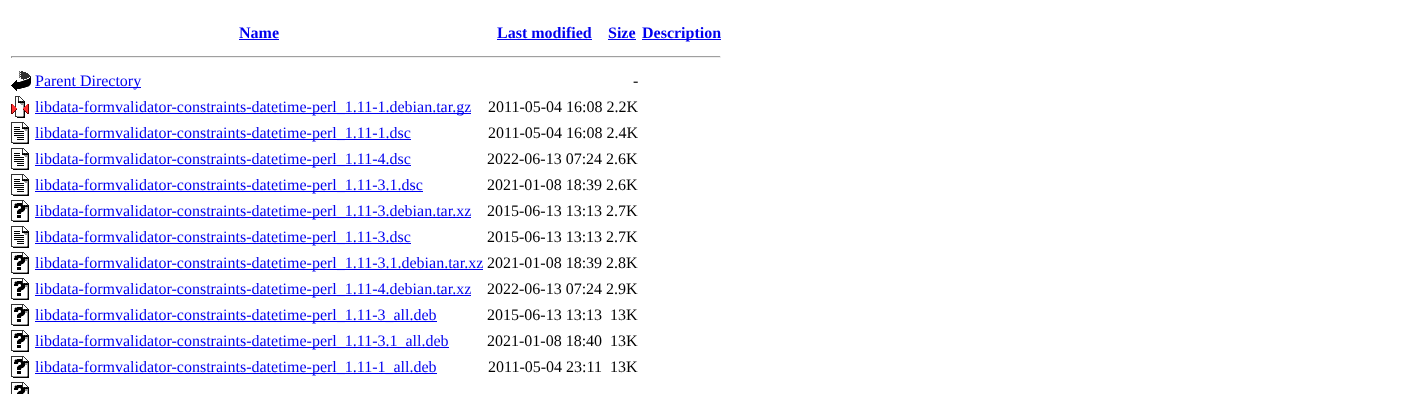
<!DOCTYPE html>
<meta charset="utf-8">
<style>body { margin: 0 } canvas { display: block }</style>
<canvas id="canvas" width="1408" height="394"></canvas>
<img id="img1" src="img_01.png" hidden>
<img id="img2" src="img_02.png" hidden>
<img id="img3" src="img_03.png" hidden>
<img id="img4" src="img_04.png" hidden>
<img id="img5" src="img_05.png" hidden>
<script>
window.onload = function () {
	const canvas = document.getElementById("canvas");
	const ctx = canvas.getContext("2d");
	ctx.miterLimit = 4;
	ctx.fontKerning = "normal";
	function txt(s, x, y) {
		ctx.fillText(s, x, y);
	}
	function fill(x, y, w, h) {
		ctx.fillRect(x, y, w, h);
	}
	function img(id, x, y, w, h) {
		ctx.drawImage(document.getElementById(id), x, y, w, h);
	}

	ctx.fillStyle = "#FFFFFF";
	fill(0, 0, 1408, 394);
	ctx.fillStyle = "#0000EE";
	fill(239, 39, 40, 1);
	fill(497, 39, 95, 1);
	fill(608, 39, 28, 1);
	fill(642, 39, 79, 1);
	ctx.fillStyle = "#9F9F9F";
	fill(11, 56, 710, 1);
	ctx.fillStyle = "#EEEEEE";
	fill(720, 56, 1, 2);
	fill(11, 57, 710, 1);
	ctx.fillStyle = "#9F9F9F";
	fill(11, 56, 1, 2);
	img("img1", 11, 71, 20, 20);
	ctx.fillStyle = "#0000EE";
	fill(35, 87, 106, 1);
	img("img2", 11, 96, 18, 22);
	fill(35, 113, 436, 1);
	img("img3", 11, 122, 18, 22);
	fill(35, 139, 376, 1);
	img("img3", 11, 148, 18, 22);
	fill(35, 165, 376, 1);
	img("img3", 11, 174, 18, 22);
	fill(35, 191, 388, 1);
	img("img4", 11, 200, 18, 22);
	fill(35, 217, 436, 1);
	img("img3", 11, 226, 18, 22);
	fill(35, 243, 376, 1);
	img("img4", 11, 252, 18, 22);
	fill(35, 269, 448, 1);
	img("img4", 11, 278, 18, 22);
	fill(35, 295, 436, 1);
	img("img4", 11, 304, 18, 22);
	fill(35, 321, 402, 1);
	img("img4", 11, 330, 18, 22);
	fill(35, 347, 414, 1);
	img("img4", 11, 356, 18, 22);
	fill(35, 373, 402, 1);
	img("img5", 11, 382, 18, 12);
	ctx.font = "bold 16px Liberation Serif";
	txt("Name", 239, 38);
	txt("Last modified", 497, 38);
	txt("Size", 608, 38);
	txt("Description", 642, 38);
	ctx.font = "16px Liberation Serif";
	txt("Parent Directory", 35, 86);
	ctx.fillStyle = "#000000";
	txt("-", 633, 86);
	ctx.fillStyle = "#0000EE";
	txt("libdata-formvalidator-constraints-datetime-perl_1.11-1.debian.tar.gz", 35, 112);
	ctx.fillStyle = "#000000";
	txt("2011-05-04 16:08 2.2K", 488, 112);
	ctx.fillStyle = "#0000EE";
	txt("libdata-formvalidator-constraints-datetime-perl_1.11-1.dsc", 35, 138);
	ctx.fillStyle = "#000000";
	txt("2011-05-04 16:08 2.4K", 488, 138);
	ctx.fillStyle = "#0000EE";
	txt("libdata-formvalidator-constraints-datetime-perl_1.11-4.dsc", 35, 164);
	ctx.fillStyle = "#000000";
	txt("2022-06-13 07:24 2.6K", 487, 164);
	ctx.fillStyle = "#0000EE";
	txt("libdata-formvalidator-constraints-datetime-perl_1.11-3.1.dsc", 35, 190);
	ctx.fillStyle = "#000000";
	txt("2021-01-08 18:39 2.6K", 487, 190);
	ctx.fillStyle = "#0000EE";
	txt("libdata-formvalidator-constraints-datetime-perl_1.11-3.debian.tar.xz", 35, 216);
	ctx.fillStyle = "#000000";
	txt("2015-06-13 13:13 2.7K", 487, 216);
	ctx.fillStyle = "#0000EE";
	txt("libdata-formvalidator-constraints-datetime-perl_1.11-3.dsc", 35, 242);
	ctx.fillStyle = "#000000";
	txt("2015-06-13 13:13 2.7K", 487, 242);
	ctx.fillStyle = "#0000EE";
	txt("libdata-formvalidator-constraints-datetime-perl_1.11-3.1.debian.tar.xz", 35, 268);
	ctx.fillStyle = "#000000";
	txt("2021-01-08 18:39 2.8K", 487, 268);
	ctx.fillStyle = "#0000EE";
	txt("libdata-formvalidator-constraints-datetime-perl_1.11-4.debian.tar.xz", 35, 294);
	ctx.fillStyle = "#000000";
	txt("2022-06-13 07:24 2.9K", 487, 294);
	ctx.fillStyle = "#0000EE";
	txt("libdata-formvalidator-constraints-datetime-perl_1.11-3_all.deb", 35, 320);
	ctx.fillStyle = "#000000";
	txt("2015-06-13 13:13", 487, 320);
	txt("13K", 610, 320);
	ctx.fillStyle = "#0000EE";
	txt("libdata-formvalidator-constraints-datetime-perl_1.11-3.1_all.deb", 35, 346);
	ctx.fillStyle = "#000000";
	txt("2021-01-08 18:40", 487, 346);
	txt("13K", 610, 346);
	ctx.fillStyle = "#0000EE";
	txt("libdata-formvalidator-constraints-datetime-perl_1.11-1_all.deb", 35, 372);
	ctx.fillStyle = "#000000";
	txt("2011-05-04 23:11", 488, 372);
	txt("13K", 610, 372);
};
</script>
